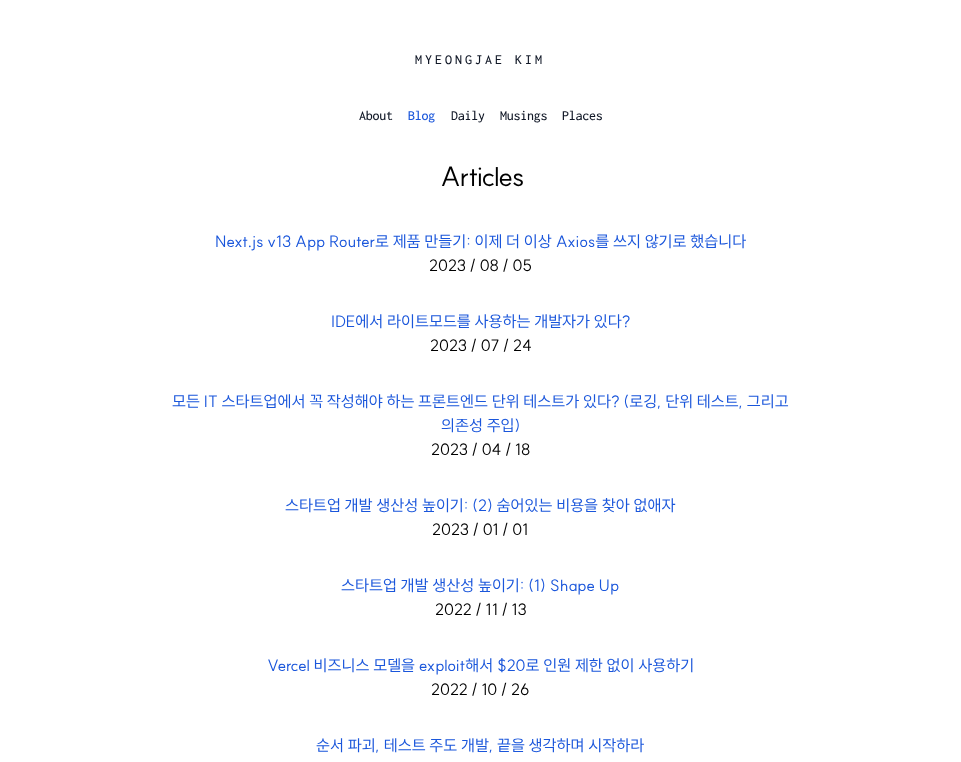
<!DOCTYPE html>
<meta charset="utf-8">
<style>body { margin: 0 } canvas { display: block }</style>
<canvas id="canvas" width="961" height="762"></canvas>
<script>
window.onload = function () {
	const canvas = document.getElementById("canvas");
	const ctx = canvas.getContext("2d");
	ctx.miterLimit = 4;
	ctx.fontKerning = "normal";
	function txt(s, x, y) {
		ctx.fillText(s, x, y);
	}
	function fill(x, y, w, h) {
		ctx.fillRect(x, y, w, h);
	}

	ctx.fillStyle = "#FFFFFF";
	fill(0, 0, 961, 762);
	ctx.letterSpacing = "3px";
	ctx.font = "500 14px Inconsolata";
	ctx.fillStyle = "#111827";
	txt("MYEONGJAE KIM", 415, 64);
	ctx.letterSpacing = "-0.25px";
	txt("About", 359, 120);
	ctx.fillStyle = "#1A56DB";
	txt("Blog", 408, 120);
	ctx.fillStyle = "#111827";
	txt("Daily", 451, 120);
	txt("Musings", 500, 120);
	txt("Places", 562, 120);
	ctx.letterSpacing = "-0.75px";
	ctx.font = "27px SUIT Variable";
	ctx.fillStyle = "#000000";
	txt("Articles", 440, 186);
	ctx.letterSpacing = "0px";
	ctx.font = "16px SUIT Variable";
	ctx.fillStyle = "#1A56DB";
	txt("Next.js v13 App Router로 제품 만들기: 이제 더 이상 Axios를 쓰지 않기로 했습니다", 215, 247);
	ctx.fillStyle = "#000000";
	txt("2023 / 08 / 05", 429, 271);
	ctx.fillStyle = "#1A56DB";
	txt("IDE에서 라이트모드를 사용하는 개발자가 있다?", 331, 327);
	ctx.fillStyle = "#000000";
	txt("2023 / 07 / 24", 430, 351);
	ctx.fillStyle = "#1A56DB";
	txt("모든 IT 스타트업에서 꼭 작성해야 하는 프론트엔드 단위 테스트가 있다? (로깅, 단위 테스트, 그리고", 172, 407);
	txt("의존성 주입)", 441, 431);
	ctx.fillStyle = "#000000";
	txt("2023 / 04 / 18", 431, 455);
	ctx.fillStyle = "#1A56DB";
	txt("스타트업 개발 생산성 높이기: (2) 숨어있는 비용을 찾아 없애자", 285, 511);
	ctx.fillStyle = "#000000";
	txt("2023 / 01 / 01", 432, 535);
	ctx.fillStyle = "#1A56DB";
	txt("스타트업 개발 생산성 높이기: (1) Shape Up", 341, 591);
	ctx.fillStyle = "#000000";
	txt("2022 / 11 / 13", 435, 615);
	ctx.fillStyle = "#1A56DB";
	txt("Vercel 비즈니스 모델을 exploit해서 $20로 인원 제한 없이 사용하기", 267, 671);
	ctx.fillStyle = "#000000";
	txt("2022 / 10 / 26", 431, 695);
	ctx.fillStyle = "#1A56DB";
	txt("순서 파괴, 테스트 주도 개발, 끝을 생각하며 시작하라", 316, 751);
};
</script>
